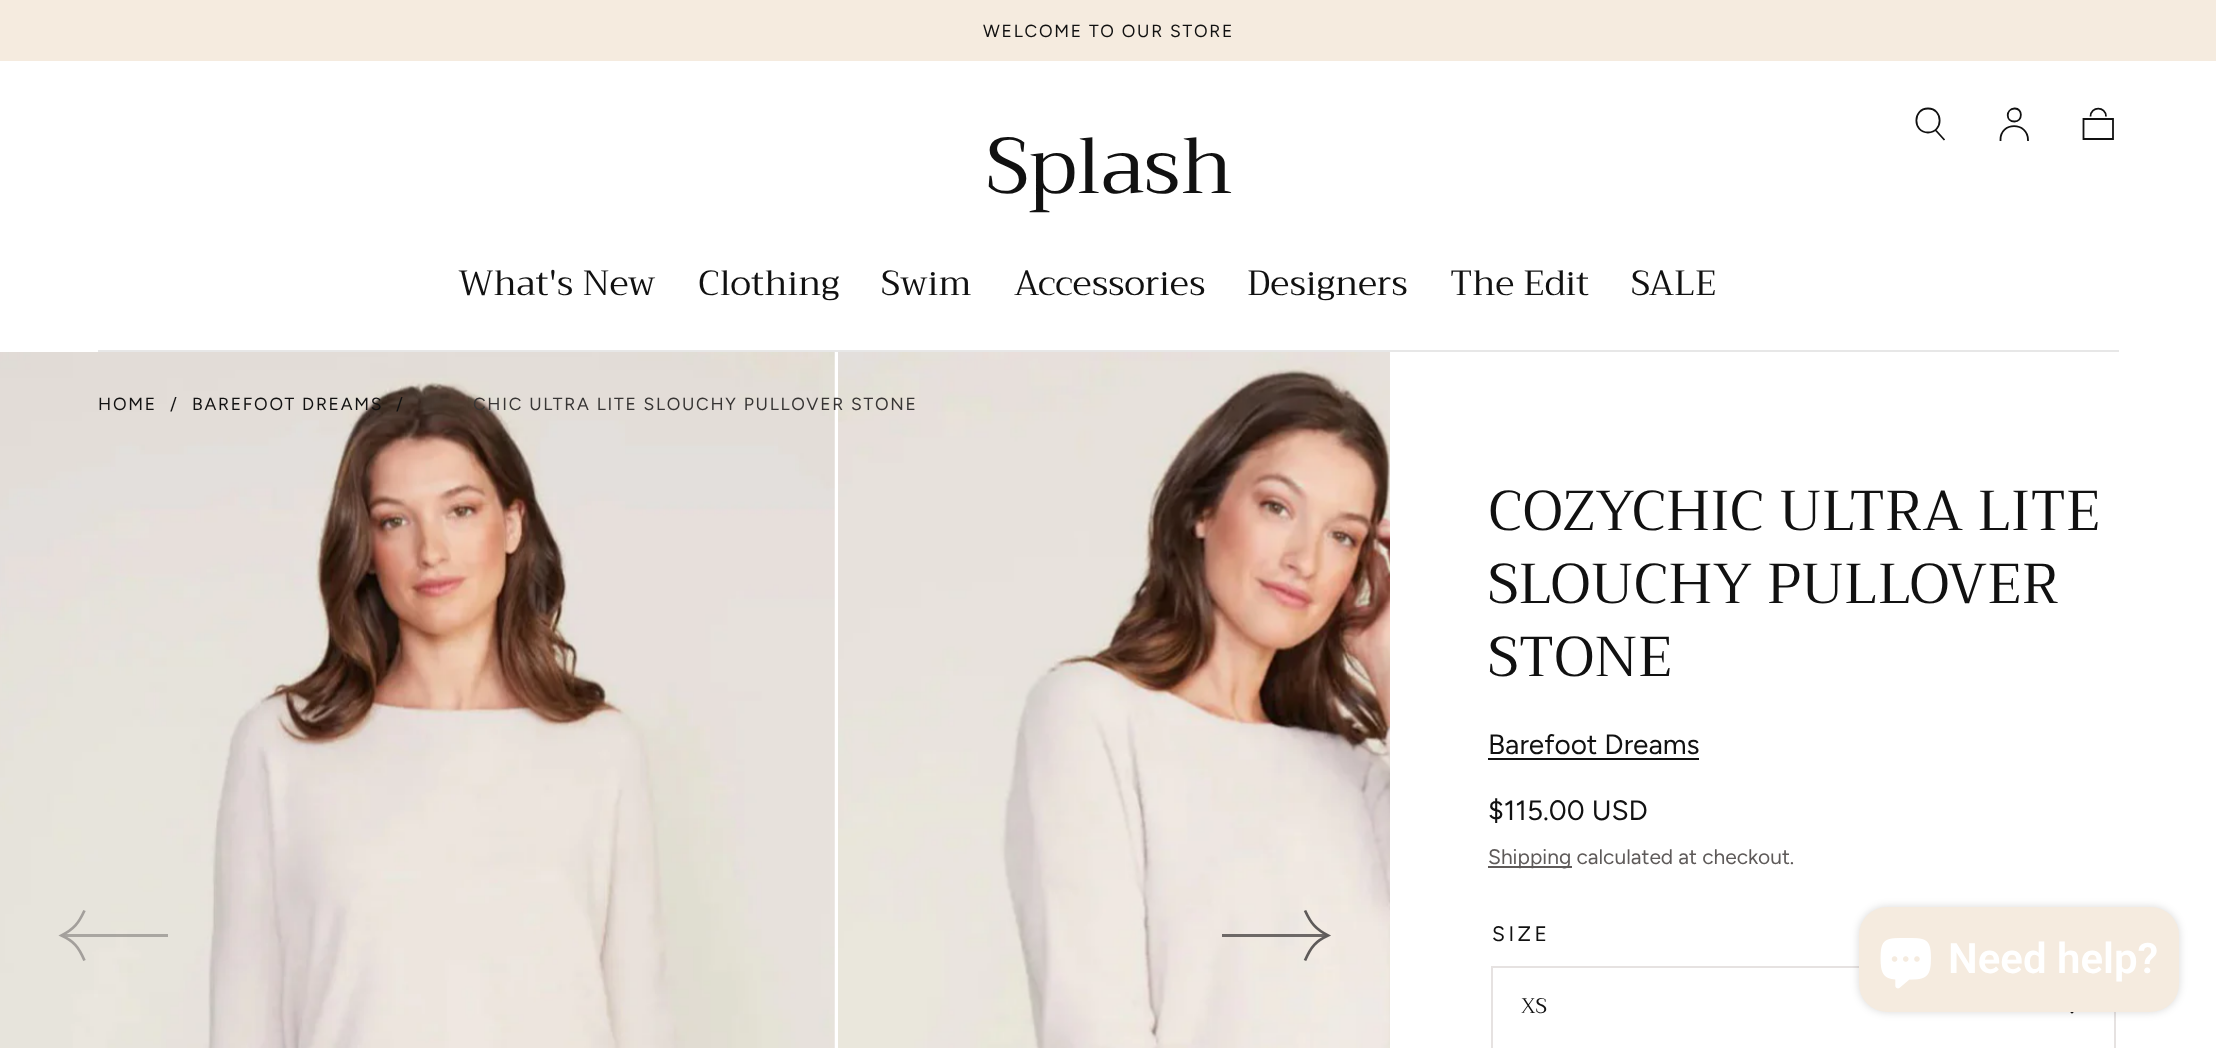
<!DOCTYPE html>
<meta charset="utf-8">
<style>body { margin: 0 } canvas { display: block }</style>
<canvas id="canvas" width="2216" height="1048"></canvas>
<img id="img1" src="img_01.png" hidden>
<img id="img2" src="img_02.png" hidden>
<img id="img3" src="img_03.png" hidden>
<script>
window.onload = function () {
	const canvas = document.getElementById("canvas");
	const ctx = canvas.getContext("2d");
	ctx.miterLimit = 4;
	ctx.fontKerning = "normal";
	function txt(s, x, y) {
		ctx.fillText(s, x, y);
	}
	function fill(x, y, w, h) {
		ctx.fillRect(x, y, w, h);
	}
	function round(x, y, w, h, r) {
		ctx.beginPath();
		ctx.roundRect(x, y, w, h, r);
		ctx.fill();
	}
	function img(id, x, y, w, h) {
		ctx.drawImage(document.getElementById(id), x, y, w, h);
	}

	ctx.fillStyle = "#FFFFFF";
	fill(0, 0, 2216, 1048);
	ctx.fillStyle = "#F5EBDF";
	fill(0, 0, 2216, 61);
	ctx.beginPath();
	ctx.moveTo(1935, 129.5);
	ctx.lineTo(1944.5, 140);
	ctx.moveTo(1928, 132.5);
	ctx.bezierCurveTo(1943.5, 132.5, 1943.5, 108.5, 1928, 108.5);
	ctx.bezierCurveTo(1912.5, 108.5, 1912.5, 132.5, 1928, 132.5);
	ctx.closePath();
	ctx.strokeStyle = "#111111";
	ctx.lineWidth = 1.8;
	ctx.stroke();
	ctx.beginPath();
	ctx.moveTo(2000.5, 140);
	ctx.bezierCurveTo(2000, 121.5, 2028, 121.5, 2028, 140);
	ctx.moveTo(2014.5, 121.5);
	ctx.bezierCurveTo(2023, 121.5, 2023, 108, 2014.5, 108.5);
	ctx.bezierCurveTo(2005.5, 109, 2005.5, 121.5, 2014.5, 121.5);
	ctx.closePath();
	ctx.lineCap = "square";
	ctx.stroke();
	ctx.beginPath();
	ctx.moveTo(2113, 139);
	ctx.lineTo(2083.5, 139);
	ctx.lineTo(2083.5, 119);
	ctx.lineTo(2113, 119);
	ctx.closePath();
	ctx.moveTo(2106, 116.5);
	ctx.bezierCurveTo(2106, 106, 2090.5, 106, 2090.5, 116.5);
	ctx.lineCap = "butt";
	ctx.stroke();
	ctx.fillStyle = "#E7E7E7";
	fill(98, 350, 2021, 2);
	img("img1", 0, 352, 835, 696);
	img("img2", 838, 352, 552, 696);
	ctx.fillStyle = "rgba(94, 90, 89, 0.45)";
	fill(63, 934, 105, 3);
	ctx.beginPath();
	ctx.moveTo(84.5, 960.5);
	ctx.bezierCurveTo(78.5, 946.5, 73.5, 941, 61.5, 935.5);
	ctx.bezierCurveTo(74, 929, 78.5, 923.5, 84.5, 910.5);
	ctx.strokeStyle = "#A39F9B";
	ctx.lineWidth = 2.7;
	ctx.stroke();
	ctx.fillStyle = "rgba(94, 90, 89, 0.9)";
	fill(1222, 934, 105, 3);
	ctx.beginPath();
	ctx.moveTo(1305, 960.5);
	ctx.bezierCurveTo(1311, 946.5, 1316, 941, 1328, 935.5);
	ctx.bezierCurveTo(1315.5, 929, 1311, 923.5, 1305, 910.5);
	ctx.strokeStyle = "#5E5A59";
	ctx.stroke();
	ctx.fillStyle = "#111111";
	fill(1488, 758, 211, 2);
	ctx.fillStyle = "#5E5A59";
	fill(1488, 866, 84, 2);
	ctx.strokeStyle = "#E6E2E1";
	ctx.lineWidth = 2;
	ctx.strokeRect(1492, 967, 623, 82);
	ctx.beginPath();
	ctx.moveTo(2081.5, 1003.5);
	ctx.lineTo(2072, 1012.5);
	ctx.lineTo(2062.5, 1003.5);
	ctx.strokeStyle = "#111111";
	ctx.lineWidth = 1.8;
	ctx.stroke();
	ctx.fillStyle = "rgba(0, 0, 0, 0.15)";
	ctx.filter = "blur(4.5px)";
	ctx.beginPath();
	ctx.roundRect(1859, 907, 320, 105, 28);
	ctx.fill();
	ctx.filter = "none";
	ctx.fillStyle = "#F5EBDF";
	round(1859, 907, 320, 105, 28);
	img("img3", 1880, 938, 51, 51);
	ctx.letterSpacing = "1.75px";
	ctx.font = "17.5px Figtree";
	ctx.fillStyle = "#111111";
	txt("WELCOME TO OUR STORE", 983, 37);
	ctx.letterSpacing = "0px";
	ctx.font = "79px Trirong";
	txt("Splash", 986, 193);
	ctx.font = "35px Trirong";
	txt("What's New", 458, 295);
	txt("Clothing", 698, 295);
	txt("Swim", 881, 295);
	txt("Accessories", 1014, 295);
	txt("Designers", 1247, 295);
	txt("The Edit", 1450, 295);
	txt("SALE", 1631, 295);
	ctx.letterSpacing = "1.75px";
	ctx.font = "17.5px Figtree";
	txt("HOME", 98, 410);
	txt("/", 170, 410);
	txt("BAREFOOT DREAMS", 192, 410);
	txt("/", 396, 410);
	ctx.fillStyle = "#373534";
	txt("CHIC ULTRA LITE SLOUCHY PULLOVER STONE", 473, 410);
	ctx.letterSpacing = "0px";
	ctx.font = "56px Trirong";
	ctx.fillStyle = "#111111";
	txt("COZYCHIC ULTRA LITE", 1488, 530);
	txt("SLOUCHY PULLOVER", 1488, 603);
	txt("STONE", 1488, 676);
	ctx.font = "28px Figtree";
	txt("Barefoot Dreams", 1488, 754);
	txt("$115.00 USD", 1488, 820);
	ctx.font = "21px Figtree";
	ctx.fillStyle = "#5E5A59";
	txt("Shipping calculated at checkout.", 1488, 864);
	ctx.letterSpacing = "3.5px";
	ctx.fillStyle = "#111111";
	txt("SIZE", 1492, 941);
	ctx.letterSpacing = "0px";
	ctx.font = "21px Trirong";
	txt("XS", 1521, 1013);
	ctx.font = "600 42px Roboto";
	ctx.fillStyle = "#FFFFFF";
	txt("Need help?", 1948, 973);
};
</script>
